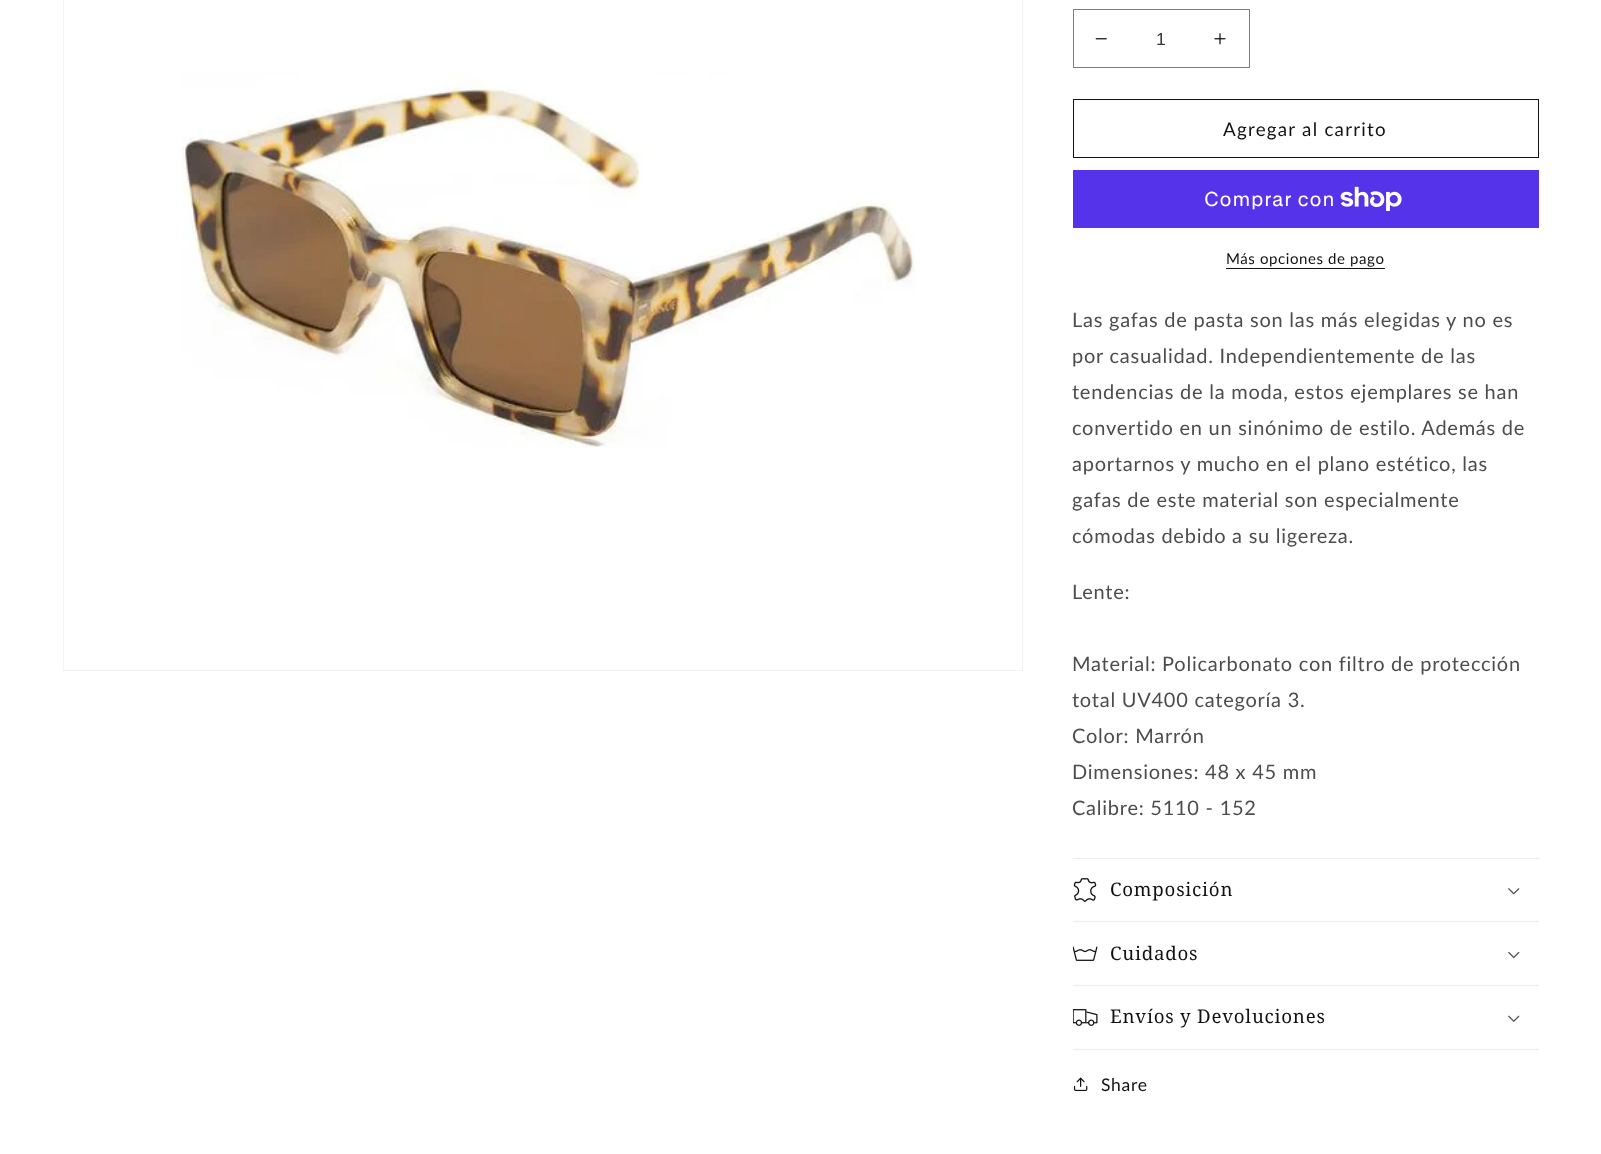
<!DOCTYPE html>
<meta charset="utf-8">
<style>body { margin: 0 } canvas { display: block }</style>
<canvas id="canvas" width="1601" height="1154"></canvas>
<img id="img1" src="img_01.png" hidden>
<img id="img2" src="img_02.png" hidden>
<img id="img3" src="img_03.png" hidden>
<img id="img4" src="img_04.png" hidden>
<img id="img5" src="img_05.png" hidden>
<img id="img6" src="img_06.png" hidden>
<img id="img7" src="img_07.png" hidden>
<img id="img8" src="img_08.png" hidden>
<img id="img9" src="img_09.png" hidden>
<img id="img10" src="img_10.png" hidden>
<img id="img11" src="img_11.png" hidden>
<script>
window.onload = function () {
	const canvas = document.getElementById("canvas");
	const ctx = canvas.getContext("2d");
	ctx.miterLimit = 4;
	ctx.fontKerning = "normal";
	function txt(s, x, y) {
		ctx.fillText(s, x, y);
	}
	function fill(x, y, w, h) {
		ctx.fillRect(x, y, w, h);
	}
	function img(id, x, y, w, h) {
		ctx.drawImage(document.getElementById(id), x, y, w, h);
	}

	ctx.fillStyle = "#FFFFFF";
	fill(0, 0, 1601, 1154);
	ctx.strokeStyle = "#F3F3F3";
	ctx.strokeRect(63.5, -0.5, 959, 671);
	img("img1", 181, 72, 734, 376);
	img("img2", 1095, 38, 12, 2);
	img("img3", 1214, 33, 12, 12);
	ctx.strokeStyle = "#7D7D7D";
	ctx.strokeRect(1073.5, 9.5, 176, 58);
	ctx.strokeStyle = "#121212";
	ctx.strokeRect(1073.5, 99.5, 465, 58);
	ctx.fillStyle = "#5433EB";
	fill(1073, 170, 466, 58);
	img("img4", 1340, 186, 62, 25);
	ctx.fillStyle = "#121212";
	fill(1226, 268, 159, 1);
	ctx.fillStyle = "#ECECEC";
	fill(1073, 858, 466, 1);
	fill(1073, 921, 466, 1);
	img("img5", 1073, 878, 24, 24);
	img("img6", 1508, 888, 12, 7);
	fill(1073, 985, 466, 1);
	img("img7", 1073, 946, 25, 15);
	img("img8", 1508, 951, 12, 8);
	fill(1073, 1049, 466, 1);
	img("img9", 1073, 1009, 25, 17);
	img("img10", 1508, 1015, 12, 7);
	img("img11", 1073, 1077, 15, 14);
	ctx.font = "17.5px Liberation Sans";
	ctx.fillStyle = "#363636";
	txt("1", 1156, 45);
	ctx.letterSpacing = "1.25px";
	ctx.font = "18.75px Lato";
	ctx.fillStyle = "#121212";
	txt("Agregar al carrito", 1223, 136);
	ctx.letterSpacing = "0.75px";
	ctx.font = "20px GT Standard";
	ctx.fillStyle = "#FFFFFF";
	txt("Comprar con", 1204, 206);
	ctx.letterSpacing = "0.6px";
	ctx.font = "15px Lato";
	ctx.fillStyle = "#121212";
	txt("Más opciones de pago", 1226, 264);
	ctx.letterSpacing = "0.75px";
	ctx.font = "20px Lato";
	ctx.fillStyle = "#4D4D4D";
	txt("Las gafas de pasta son las más elegidas y no es", 1072, 327);
	txt("por casualidad. Independientemente de las", 1072, 363);
	txt("tendencias de la moda, estos ejemplares se han", 1072, 399);
	txt("convertido en un sinónimo de estilo. Además de", 1072, 435);
	txt("aportarnos y mucho en el plano estético, las", 1072, 471);
	txt("gafas de este material son especialmente", 1072, 507);
	txt("cómodas debido a su ligereza.", 1072, 543);
	txt("Lente:", 1072, 599);
	txt("Material: Policarbonato con filtro de protección", 1072, 671);
	txt("total UV400 categoría 3.", 1072, 707);
	txt("Color: Marrón", 1072, 743);
	txt("Dimensiones: 48 x 45 mm", 1072, 779);
	txt("Calibre: 5110 - 152", 1072, 815);
	ctx.font = "18.75px Noto Serif";
	ctx.fillStyle = "#121212";
	txt("Composición", 1110, 896);
	txt("Cuidados", 1110, 960);
	txt("Envíos y Devoluciones", 1110, 1023);
	ctx.font = "17.5px Lato";
	txt("Share", 1101, 1091);
};
</script>
